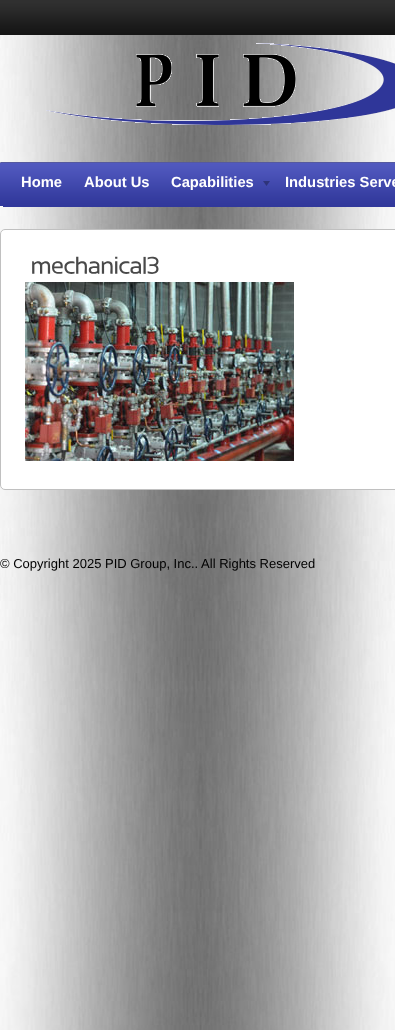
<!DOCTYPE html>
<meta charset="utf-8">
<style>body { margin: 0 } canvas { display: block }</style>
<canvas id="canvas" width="395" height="1030"></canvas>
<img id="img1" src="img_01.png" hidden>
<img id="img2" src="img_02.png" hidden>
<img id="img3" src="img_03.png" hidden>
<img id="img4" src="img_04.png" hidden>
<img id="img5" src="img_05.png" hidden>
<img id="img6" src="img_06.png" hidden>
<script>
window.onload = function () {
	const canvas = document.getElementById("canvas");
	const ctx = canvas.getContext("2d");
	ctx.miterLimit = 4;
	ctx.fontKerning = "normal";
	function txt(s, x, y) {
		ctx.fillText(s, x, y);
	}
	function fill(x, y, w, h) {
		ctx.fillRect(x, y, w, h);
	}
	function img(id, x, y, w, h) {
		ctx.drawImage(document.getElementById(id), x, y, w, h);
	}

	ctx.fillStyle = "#FFFFFF";
	fill(0, 0, 395, 1030);
	img("img1", 0, 35, 395, 995);
	img("img2", 0, 0, 395, 35);
	img("img3", 0, 43, 395, 164);
	img("img4", 263, 181, 7, 5);
	ctx.beginPath();
	ctx.roundRect(0.5, 229.5, 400, 260, 4.5);
	ctx.fill();
	ctx.strokeStyle = "#C0C0C0";
	ctx.stroke();
	img("img5", 32, 256, 127, 18);
	img("img6", 25, 282, 269, 179);
	ctx.font = "bold 14.75px Liberation Sans";
	txt("Home", 21, 187);
	txt("About Us", 84, 187);
	txt("Capabilities", 171, 187);
	txt("Industries Serve", 285, 187);
	ctx.font = "13px Liberation Sans";
	ctx.fillStyle = "#000000";
	txt("© Copyright 2025 PID Group, Inc.. All Rights Reserved", 0, 568);
};
</script>
